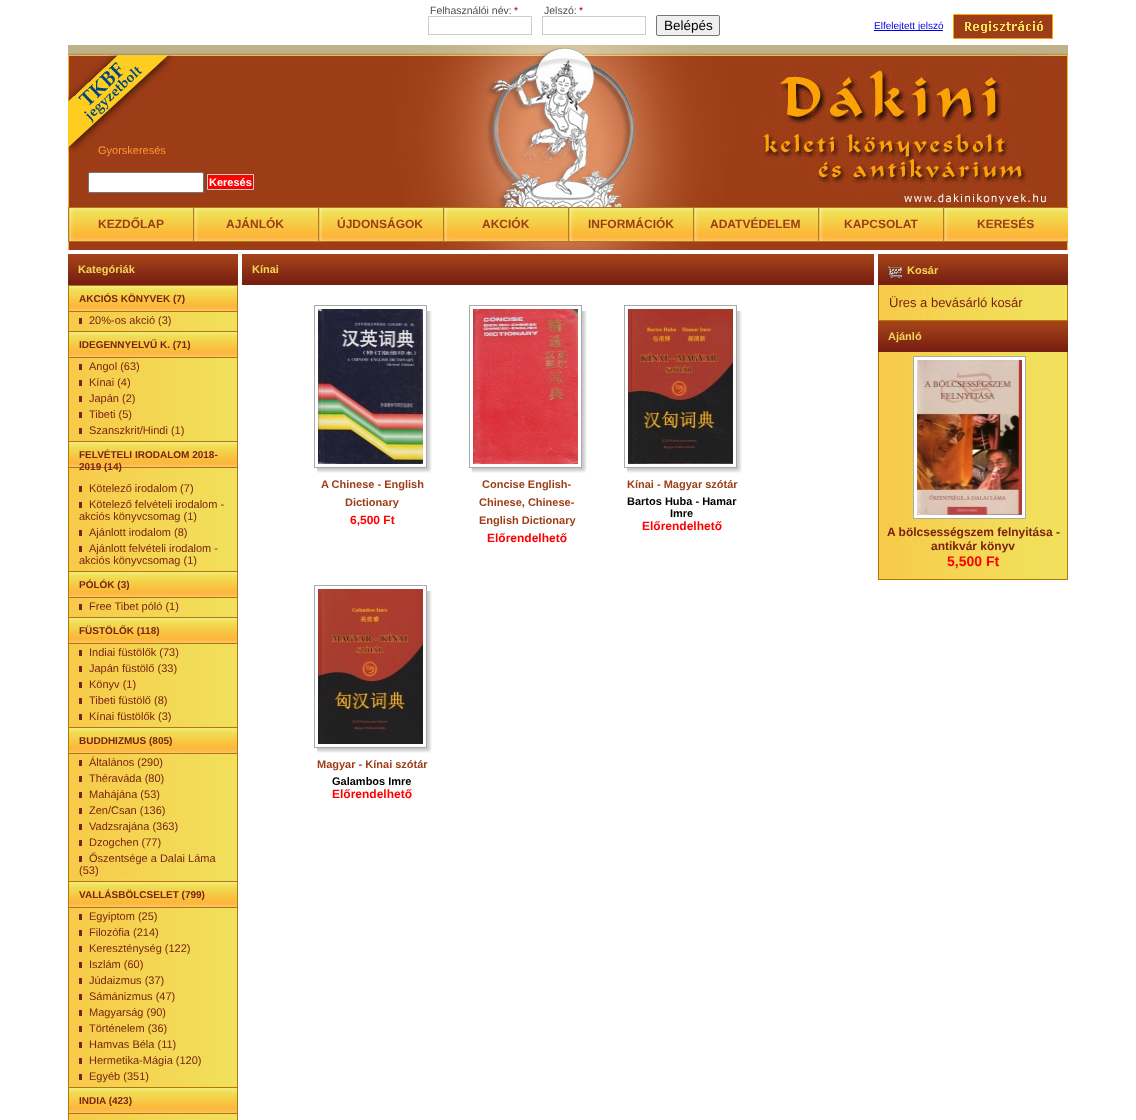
<!DOCTYPE html>
<meta charset="utf-8">
<style>body { margin: 0 } canvas { display: block }</style>
<canvas id="canvas" width="1136" height="1120"></canvas>
<img id="img1" src="img_01.png" hidden>
<img id="img2" src="img_02.png" hidden>
<img id="img3" src="img_03.png" hidden>
<img id="img4" src="img_04.png" hidden>
<img id="img5" src="img_05.png" hidden>
<img id="img6" src="img_06.png" hidden>
<img id="img7" src="img_07.png" hidden>
<img id="img8" src="img_08.png" hidden>
<img id="img9" src="img_09.png" hidden>
<img id="img10" src="img_10.png" hidden>
<img id="img11" src="img_11.png" hidden>
<img id="img12" src="img_12.png" hidden>
<img id="img13" src="img_13.png" hidden>
<img id="img14" src="img_14.png" hidden>
<img id="img15" src="img_15.png" hidden>
<img id="img16" src="img_16.png" hidden>
<img id="img17" src="img_17.png" hidden>
<img id="img18" src="img_18.png" hidden>
<img id="img19" src="img_19.png" hidden>
<img id="img20" src="img_20.png" hidden>
<img id="img21" src="img_21.png" hidden>
<img id="img22" src="img_22.png" hidden>
<img id="img23" src="img_23.png" hidden>
<img id="img24" src="img_24.png" hidden>
<img id="img25" src="img_25.png" hidden>
<script>
window.onload = function () {
	const canvas = document.getElementById("canvas");
	const ctx = canvas.getContext("2d");
	ctx.miterLimit = 4;
	ctx.fontKerning = "normal";
	function txt(s, x, y) {
		ctx.fillText(s, x, y);
	}
	function fill(x, y, w, h) {
		ctx.fillRect(x, y, w, h);
	}
	function img(id, x, y, w, h) {
		ctx.drawImage(document.getElementById(id), x, y, w, h);
	}

	ctx.fillStyle = "#FFFFFF";
	fill(0, 0, 1136, 1120);
	img("img1", 68, 45, 1000, 205);
	ctx.strokeStyle = "#CCCCCC";
	ctx.strokeRect(428.5, 16.5, 103, 18);
	ctx.strokeRect(542.5, 16.5, 103, 18);
	ctx.fillStyle = "#EFEFEF";
	ctx.beginPath();
	ctx.roundRect(656.5, 15.5, 63, 20, 1.5);
	ctx.fill();
	ctx.strokeStyle = "#767676";
	ctx.stroke();
	ctx.fillStyle = "#0000EE";
	fill(874, 30, 69, 1);
	img("img2", 953, 14, 100, 25);
	img("img3", 68, 55, 105, 98);
	ctx.fillStyle = "#FFFFFF";
	ctx.beginPath();
	ctx.roundRect(88.5, 172.5, 115, 20, 1.5);
	ctx.fill();
	ctx.stroke();
	ctx.fillStyle = "#FF0000";
	ctx.beginPath();
	ctx.rect(207.5, 174.5, 46, 15);
	ctx.fill();
	ctx.strokeStyle = "#CCCCCC";
	ctx.stroke();
	img("img4", 68, 207, 125, 35);
	img("img4", 193, 207, 125, 35);
	img("img4", 318, 207, 125, 35);
	img("img4", 443, 207, 125, 35);
	img("img4", 568, 207, 125, 35);
	img("img4", 693, 207, 125, 35);
	img("img4", 818, 207, 125, 35);
	img("img4", 943, 207, 125, 35);
	img("img5", 68, 254, 170, 31);
	img("img6", 69, 312, 168, 808);
	ctx.fillStyle = "#B1770B";
	fill(237, 285, 1, 835);
	fill(68, 285, 1, 835);
	img("img7", 69, 285, 168, 27);
	img("img8", 117, 312, 11, 14);
	ctx.fillStyle = "#7B2212";
	fill(79, 318, 3, 6);
	img("img7", 69, 331, 168, 27);
	img("img9", 117, 358, 11, 78);
	fill(79, 364, 3, 6);
	fill(79, 380, 3, 6);
	fill(79, 396, 3, 6);
	fill(79, 412, 3, 6);
	fill(79, 428, 3, 6);
	img("img7", 69, 441, 168, 27);
	img("img10", 117, 480, 11, 86);
	fill(79, 486, 3, 6);
	fill(79, 502, 3, 6);
	fill(79, 530, 3, 6);
	fill(79, 546, 3, 6);
	img("img7", 69, 571, 168, 27);
	img("img8", 117, 598, 11, 14);
	fill(79, 604, 3, 6);
	img("img7", 69, 617, 168, 27);
	img("img9", 117, 644, 11, 78);
	fill(79, 650, 3, 6);
	fill(79, 666, 3, 6);
	fill(79, 682, 3, 6);
	fill(79, 698, 3, 6);
	fill(79, 714, 3, 6);
	img("img7", 69, 727, 168, 27);
	img("img11", 117, 754, 11, 122);
	fill(79, 760, 3, 6);
	fill(79, 776, 3, 6);
	fill(79, 792, 3, 6);
	fill(79, 808, 3, 6);
	fill(79, 824, 3, 6);
	fill(79, 840, 3, 6);
	fill(79, 856, 3, 6);
	img("img7", 69, 881, 168, 27);
	img("img12", 117, 908, 11, 174);
	fill(79, 914, 3, 6);
	fill(79, 930, 3, 6);
	fill(79, 946, 3, 6);
	fill(79, 962, 3, 6);
	fill(79, 978, 3, 6);
	fill(79, 994, 3, 6);
	fill(79, 1010, 3, 6);
	fill(79, 1026, 3, 6);
	fill(79, 1042, 3, 6);
	fill(79, 1058, 3, 6);
	fill(79, 1074, 3, 6);
	img("img7", 69, 1087, 168, 27);
	img("img13", 117, 1114, 11, 6);
	img("img14", 242, 254, 632, 31);
	img("img15", 317, 311, 115, 162);
	ctx.strokeStyle = "#A9A9A9";
	ctx.strokeRect(314.5, 305.5, 112, 162);
	img("img16", 318, 309, 105, 155);
	img("img15", 472, 311, 115, 162);
	ctx.strokeRect(469.5, 305.5, 112, 162);
	img("img17", 473, 309, 105, 155);
	img("img15", 627, 311, 115, 162);
	ctx.strokeRect(624.5, 305.5, 112, 162);
	img("img18", 628, 309, 105, 155);
	img("img15", 317, 591, 115, 162);
	ctx.strokeRect(314.5, 585.5, 112, 162);
	img("img19", 318, 589, 105, 155);
	img("img20", 879, 285, 188, 35);
	img("img21", 878, 254, 190, 31);
	img("img22", 888, 266, 14, 12);
	img("img23", 926, 285, 2, 35);
	ctx.fillStyle = "#B1770B";
	fill(1067, 285, 1, 36);
	fill(878, 320, 190, 1);
	fill(878, 285, 1, 36);
	img("img21", 878, 321, 190, 31);
	img("img24", 879, 352, 188, 227);
	fill(1067, 352, 1, 228);
	fill(878, 579, 190, 1);
	fill(878, 352, 1, 228);
	ctx.fillStyle = "#FFFFFF";
	ctx.beginPath();
	ctx.rect(913.5, 356.5, 112, 162);
	ctx.fill();
	ctx.stroke();
	img("img25", 917, 360, 105, 155);
	ctx.font = "10.5px Liberation Sans";
	ctx.fillStyle = "#4E4E4E";
	txt("Felhasználói név:", 430, 14);
	ctx.fillStyle = "#CC0000";
	txt("*", 514, 14);
	ctx.fillStyle = "#4E4E4E";
	txt("Jelszó:", 544, 14);
	ctx.fillStyle = "#CC0000";
	txt("*", 579, 14);
	ctx.font = "13.5px Liberation Sans";
	ctx.fillStyle = "#000000";
	txt("Belépés", 664, 30);
	ctx.font = "10px Liberation Sans";
	ctx.fillStyle = "#0000EE";
	txt("Elfelejtett jelszó", 874, 29);
	ctx.font = "11px Liberation Sans";
	ctx.fillStyle = "#FF9933";
	txt("Gyorskeresés", 98, 154);
	ctx.font = "bold 11px Liberation Sans";
	ctx.fillStyle = "#FFFFFF";
	txt("Keresés", 209, 186);
	ctx.font = "bold 12px Liberation Sans";
	ctx.fillStyle = "#9D3D17";
	txt("KEZDŐLAP", 98, 228);
	txt("AJÁNLÓK", 226, 228);
	txt("ÚJDONSÁGOK", 337, 228);
	txt("AKCIÓK", 482, 228);
	txt("INFORMÁCIÓK", 588, 228);
	txt("ADATVÉDELEM", 710, 228);
	txt("KAPCSOLAT", 844, 228);
	txt("KERESÉS", 977, 228);
	ctx.font = "bold 11px Liberation Sans";
	ctx.fillStyle = "#F4D755";
	txt("Kategóriák", 78, 273);
	ctx.font = "bold 10px Liberation Sans";
	ctx.fillStyle = "#7B2212";
	txt("AKCIÓS KÖNYVEK (7)", 79, 302);
	ctx.font = "11px Liberation Sans";
	txt("20%-os akció (3)", 89, 324);
	ctx.font = "bold 10px Liberation Sans";
	txt("IDEGENNYELVŰ K. (71)", 79, 348);
	ctx.font = "11px Liberation Sans";
	txt("Angol (63)", 89, 370);
	txt("Kínai (4)", 89, 386);
	txt("Japán (2)", 89, 402);
	txt("Tibeti (5)", 89, 418);
	txt("Szanszkrit/Hindi (1)", 89, 434);
	ctx.font = "bold 10px Liberation Sans";
	txt("FELVÉTELI IRODALOM 2018-", 79, 458);
	txt("2019 (14)", 79, 470);
	ctx.font = "11px Liberation Sans";
	txt("Kötelező irodalom (7)", 89, 492);
	txt("Kötelező felvételi irodalom -", 89, 508);
	txt("akciós könyvcsomag (1)", 79, 520);
	txt("Ajánlott irodalom (8)", 89, 536);
	txt("Ajánlott felvételi irodalom -", 89, 552);
	txt("akciós könyvcsomag (1)", 79, 564);
	ctx.font = "bold 10px Liberation Sans";
	txt("PÓLÓK (3)", 79, 588);
	ctx.font = "11px Liberation Sans";
	txt("Free Tibet póló (1)", 89, 610);
	ctx.font = "bold 10px Liberation Sans";
	txt("FÜSTÖLŐK (118)", 79, 634);
	ctx.font = "11px Liberation Sans";
	txt("Indiai füstölők (73)", 89, 656);
	txt("Japán füstölő (33)", 89, 672);
	txt("Könyv (1)", 89, 688);
	txt("Tibeti füstölő (8)", 89, 704);
	txt("Kínai füstölők (3)", 89, 720);
	ctx.font = "bold 10px Liberation Sans";
	txt("BUDDHIZMUS (805)", 79, 744);
	ctx.font = "11px Liberation Sans";
	txt("Általános (290)", 89, 766);
	txt("Théraváda (80)", 89, 782);
	txt("Mahájána (53)", 89, 798);
	txt("Zen/Csan (136)", 89, 814);
	txt("Vadzsrajána (363)", 89, 830);
	txt("Dzogchen (77)", 89, 846);
	txt("Őszentsége a Dalai Láma", 89, 862);
	txt("(53)", 79, 874);
	ctx.font = "bold 10px Liberation Sans";
	txt("VALLÁSBÖLCSELET (799)", 79, 898);
	ctx.font = "11px Liberation Sans";
	txt("Egyiptom (25)", 89, 920);
	txt("Filozófia (214)", 89, 936);
	txt("Kereszténység (122)", 89, 952);
	txt("Iszlám (60)", 89, 968);
	txt("Júdaizmus (37)", 89, 984);
	txt("Sámánizmus (47)", 89, 1000);
	txt("Magyarság (90)", 89, 1016);
	txt("Történelem (36)", 89, 1032);
	txt("Hamvas Béla (11)", 89, 1048);
	txt("Hermetika-Mágia (120)", 89, 1064);
	txt("Egyéb (351)", 89, 1080);
	ctx.font = "bold 10px Liberation Sans";
	txt("INDIA (423)", 79, 1104);
	ctx.font = "bold 11px Liberation Sans";
	ctx.fillStyle = "#F4D755";
	txt("Kínai", 252, 273);
	ctx.fillStyle = "#9D3D17";
	txt("A Chinese - English", 321, 488);
	txt("Dictionary", 345, 506);
	ctx.font = "bold 12px Liberation Sans";
	ctx.fillStyle = "#FF0000";
	txt("6,500 Ft", 350, 524);
	ctx.font = "bold 11px Liberation Sans";
	ctx.fillStyle = "#9D3D17";
	txt("Concise English-", 482, 488);
	txt("Chinese, Chinese-", 479, 506);
	txt("English Dictionary", 479, 524);
	ctx.font = "bold 12px Liberation Sans";
	ctx.fillStyle = "#FF0000";
	txt("Előrendelhető", 487, 542);
	ctx.font = "bold 11px Liberation Sans";
	ctx.fillStyle = "#9D3D17";
	txt("Kínai - Magyar szótár", 627, 488);
	ctx.fillStyle = "#000000";
	txt("Bartos Huba - Hamar", 627, 505);
	txt("Imre", 670, 517);
	ctx.font = "bold 12px Liberation Sans";
	ctx.fillStyle = "#FF0000";
	txt("Előrendelhető", 642, 530);
	ctx.font = "bold 11px Liberation Sans";
	ctx.fillStyle = "#9D3D17";
	txt("Magyar - Kínai szótár", 317, 768);
	ctx.fillStyle = "#000000";
	txt("Galambos Imre", 332, 785);
	ctx.font = "bold 12px Liberation Sans";
	ctx.fillStyle = "#FF0000";
	txt("Előrendelhető", 332, 798);
	ctx.font = "bold 11px Liberation Sans";
	ctx.fillStyle = "#F4D755";
	txt("Kosár", 907, 274);
	ctx.font = "13px Liberation Sans";
	ctx.fillStyle = "#7B2212";
	txt("Üres a bevásárló kosár", 889, 307);
	ctx.font = "bold 11px Liberation Sans";
	ctx.fillStyle = "#F4D755";
	txt("Ajánló", 888, 340);
	ctx.font = "bold 12px Liberation Sans";
	ctx.fillStyle = "#7B2212";
	txt("A bölcsességszem felnyitása -", 887, 536);
	txt("antikvár könyv", 931, 550);
	ctx.font = "bold 14px Liberation Sans";
	ctx.fillStyle = "#FF0000";
	txt("5,500 Ft", 947, 566);
};
</script>
